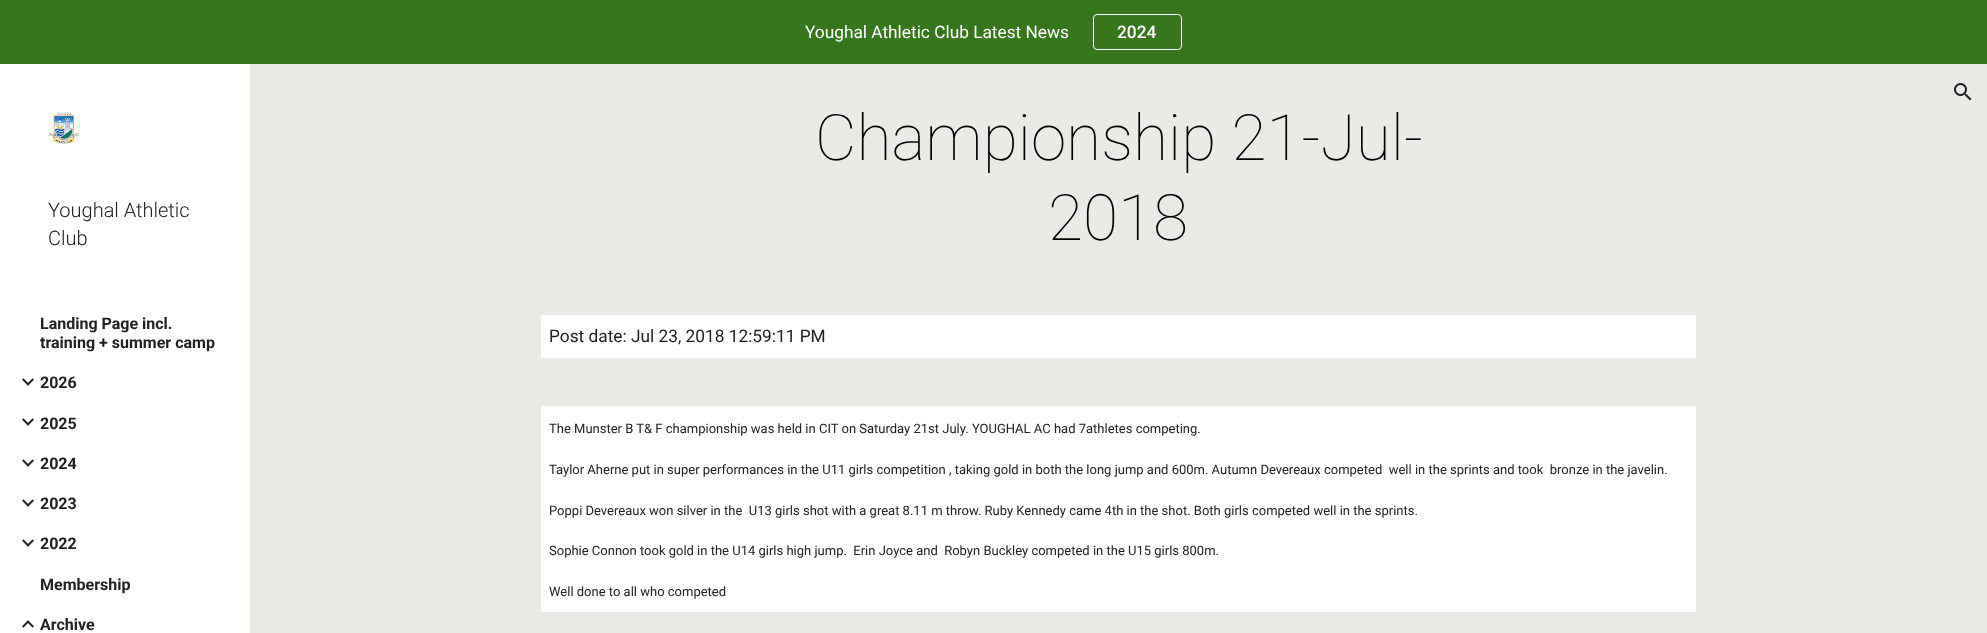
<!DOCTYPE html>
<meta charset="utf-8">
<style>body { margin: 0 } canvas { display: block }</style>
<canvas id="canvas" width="1987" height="633"></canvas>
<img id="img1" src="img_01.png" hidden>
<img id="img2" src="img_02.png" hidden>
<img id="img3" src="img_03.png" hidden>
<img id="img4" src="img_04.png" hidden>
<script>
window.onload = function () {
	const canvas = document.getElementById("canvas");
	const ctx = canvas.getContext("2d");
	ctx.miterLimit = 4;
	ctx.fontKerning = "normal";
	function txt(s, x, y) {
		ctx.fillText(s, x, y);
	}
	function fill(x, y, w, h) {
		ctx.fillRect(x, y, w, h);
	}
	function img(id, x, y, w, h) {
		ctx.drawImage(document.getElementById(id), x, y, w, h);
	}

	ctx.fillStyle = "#EAEBE6";
	fill(0, 0, 1987, 633);
	ctx.fillStyle = "#38761D";
	fill(0, 0, 1987, 64);
	ctx.beginPath();
	ctx.roundRect(1093.5, 14.5, 88, 35, 3.5);
	ctx.strokeStyle = "#FFFFFF";
	ctx.stroke();
	img("img1", 1954, 83, 18, 18);
	ctx.fillStyle = "#FFFFFF";
	fill(0, 64, 250, 569);
	img("img2", 48, 112, 32, 32);
	img("img3", 22, 378, 12, 8);
	img("img3", 22, 418, 12, 8);
	img("img3", 22, 459, 12, 8);
	img("img3", 22, 499, 12, 8);
	img("img3", 22, 539, 12, 8);
	img("img4", 22, 620, 12, 8);
	fill(541, 315, 1155, 43);
	fill(541, 406, 1155, 206);
	ctx.font = "17.3px Roboto";
	txt("Youghal Athletic Club Latest News", 805, 38);
	ctx.font = "500 17.3px Roboto";
	txt("2024", 1117, 38);
	ctx.font = "300 20px Roboto";
	ctx.fillStyle = "#212121";
	txt("Youghal Athletic", 48, 217);
	txt("Club", 48, 245);
	ctx.font = "bold 16px Roboto";
	txt("Landing Page incl.", 40, 329);
	txt("training + summer camp", 40, 348);
	txt("2026", 40, 388);
	txt("2025", 40, 429);
	txt("2024", 40, 469);
	txt("2023", 40, 509);
	txt("2022", 40, 549);
	txt("Membership", 40, 590);
	txt("Archive", 40, 630);
	ctx.font = "100 64px Roboto";
	ctx.fillStyle = "#000000";
	txt("Championship 21-Jul-", 815, 160);
	txt("2018", 1048, 240);
	ctx.font = "17.3px Roboto";
	ctx.fillStyle = "#212121";
	txt("Post date: Jul 23, 2018 12:59:11 PM", 549, 342);
	ctx.font = "13px Roboto";
	txt("The Munster B T& F championship was held in CIT on Saturday 21st July. YOUGHAL AC had 7athletes competing.", 549, 433);
	txt("Taylor Aherne put in super performances in the U11 girls competition , taking gold in both the long jump and 600m. Autumn Devereaux competed  well in the sprints and took  bronze in the javelin.", 549, 474);
	txt("Poppi Devereaux won silver in the  U13 girls shot with a great 8.11 m throw. Ruby Kennedy came 4th in the shot. Both girls competed well in the sprints.", 549, 515);
	txt("Sophie Connon took gold in the U14 girls high jump.  Erin Joyce and  Robyn Buckley competed in the U15 girls 800m.", 549, 555);
	txt("Well done to all who competed", 549, 596);
};
</script>
